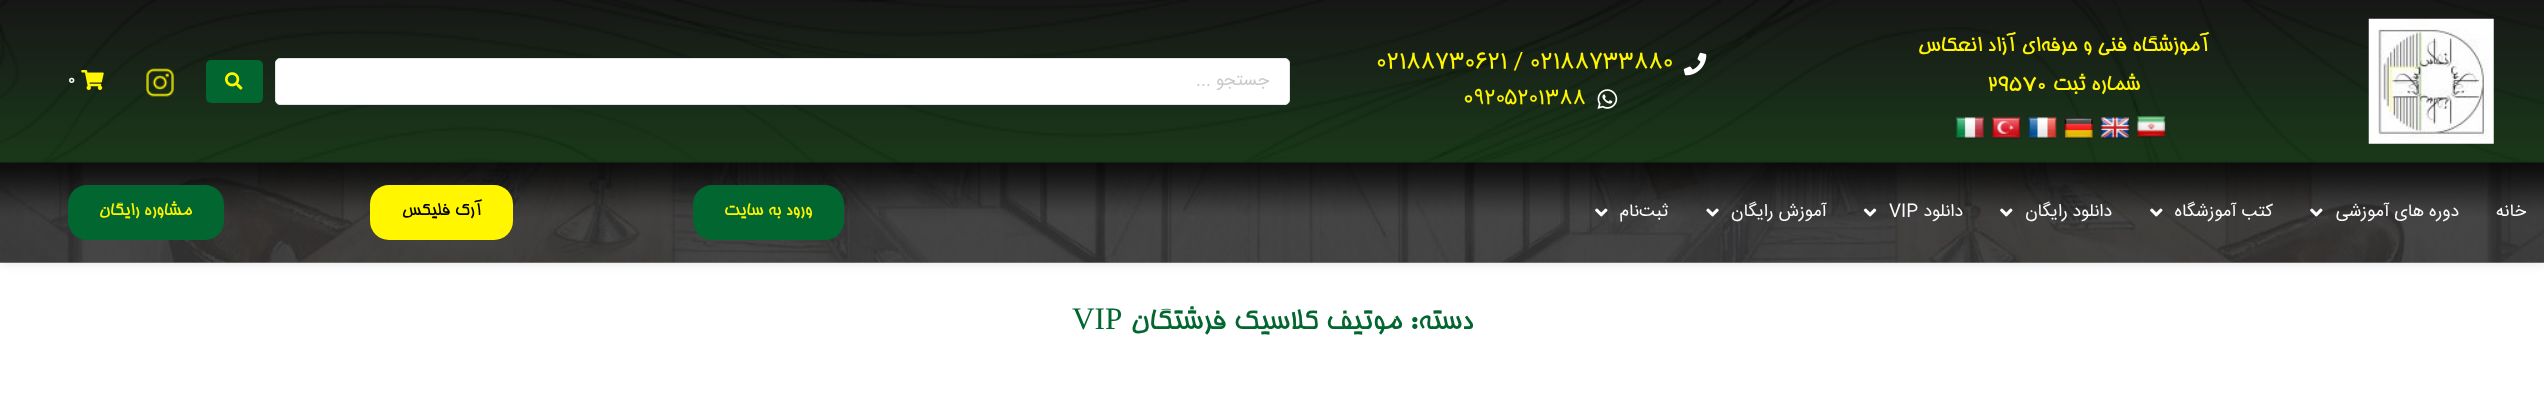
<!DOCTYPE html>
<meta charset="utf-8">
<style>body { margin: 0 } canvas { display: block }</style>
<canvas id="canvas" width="2544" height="399"></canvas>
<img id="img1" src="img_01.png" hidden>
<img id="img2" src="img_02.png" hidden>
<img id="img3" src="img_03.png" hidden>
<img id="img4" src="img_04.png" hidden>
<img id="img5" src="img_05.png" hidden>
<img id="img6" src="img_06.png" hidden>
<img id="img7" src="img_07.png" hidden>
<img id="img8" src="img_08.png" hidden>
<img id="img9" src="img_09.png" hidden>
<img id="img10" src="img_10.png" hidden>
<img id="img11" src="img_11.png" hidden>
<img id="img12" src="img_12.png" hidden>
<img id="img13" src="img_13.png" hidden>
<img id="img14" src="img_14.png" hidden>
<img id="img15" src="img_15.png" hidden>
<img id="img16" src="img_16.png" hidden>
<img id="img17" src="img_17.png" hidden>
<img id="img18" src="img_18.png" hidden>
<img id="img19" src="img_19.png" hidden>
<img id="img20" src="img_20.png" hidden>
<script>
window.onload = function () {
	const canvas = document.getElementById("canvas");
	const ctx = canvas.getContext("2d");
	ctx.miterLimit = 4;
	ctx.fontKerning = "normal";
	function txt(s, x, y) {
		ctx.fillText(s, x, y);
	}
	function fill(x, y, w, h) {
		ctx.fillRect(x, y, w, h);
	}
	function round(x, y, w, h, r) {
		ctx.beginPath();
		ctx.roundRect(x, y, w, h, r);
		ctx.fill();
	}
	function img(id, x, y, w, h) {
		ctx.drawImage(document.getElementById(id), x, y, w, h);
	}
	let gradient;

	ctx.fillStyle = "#FFFFFF";
	fill(0, 0, 2544, 399);
	ctx.save();
	ctx.beginPath();
	ctx.moveTo(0, 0);
	ctx.lineTo(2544, 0);
	ctx.lineTo(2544, 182);
	ctx.lineTo(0, 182);
	ctx.closePath();
	ctx.moveTo(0, 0);
	ctx.lineTo(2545, 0);
	ctx.lineTo(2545, 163);
	ctx.lineTo(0, 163);
	ctx.closePath();
	ctx.clip("evenodd");
	ctx.fillStyle = "rgba(0, 0, 0, 0.11)";
	ctx.filter = "blur(6px)";
	ctx.beginPath();
	ctx.rect(0, 0, 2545, 163);
	ctx.fill();
	ctx.filter = "none";
	ctx.restore();
	ctx.fillStyle = "rgba(0, 0, 0, 0.37)";
	fill(0, 0, 2544, 163);
	img("img1", 0, 0, 2544, 163);
	gradient = ctx.createLinearGradient(1273, 0, 1273, 163);
	gradient.addColorStop(0, "rgba(2, 2, 2, 0.87)");
	gradient.addColorStop(1, "rgba(6, 42, 6, 0.87)");
	ctx.fillStyle = gradient;
	fill(0, 0, 2544, 163);
	img("img2", 2368, 18, 126, 126);
	img("img3", 2137, 116, 29, 22);
	img("img4", 2101, 117, 28, 22);
	img("img5", 2064, 117, 29, 22);
	img("img6", 2028, 117, 29, 22);
	img("img7", 1992, 117, 29, 22);
	img("img8", 1956, 117, 28, 22);
	img("img9", 1683, 52, 24, 24);
	img("img10", 1597, 89, 21, 20);
	ctx.fillStyle = "#FFFFFF";
	ctx.beginPath();
	ctx.roundRect(275.5, 58.5, 1014, 46, 4.5);
	ctx.fill();
	ctx.strokeStyle = "#E1E5EB";
	ctx.stroke();
	ctx.fillStyle = "#026630";
	round(206, 60, 57, 43, 5);
	img("img11", 225, 72, 18, 18);
	img("img12", 146, 68, 28, 29);
	img("img13", 81, 70, 23, 20);
	ctx.fillStyle = "rgba(0, 0, 0, 0.11)";
	ctx.filter = "blur(6px)";
	ctx.beginPath();
	ctx.rect(0, 163, 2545, 100);
	ctx.fill();
	ctx.filter = "none";
	ctx.fillStyle = "rgba(0, 0, 0, 0.37)";
	fill(0, 262, 2544, 1);
	img("img14", 0, 162, 2544, 101);
	img("img15", 2310, 208, 13, 9);
	img("img16", 2150, 208, 13, 9);
	img("img17", 2000, 208, 13, 9);
	img("img18", 1863, 208, 14, 9);
	img("img19", 1706, 208, 13, 9);
	img("img20", 1595, 208, 13, 9);
	ctx.fillStyle = "#026630";
	round(693, 185, 151, 55, 19);
	ctx.fillStyle = "#FFF600";
	round(370, 185, 143, 55, 19);
	ctx.fillStyle = "#026630";
	round(68, 185, 156, 55, 19);
	ctx.direction = "rtl";
	ctx.font = "22.5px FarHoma";
	ctx.fillStyle = "#FFF600";
	txt("آموزشگاه فنی و حرفه‌ای آزاد انعکاس", 2209, 51);
	txt("شماره ثبت", 2140, 90);
	ctx.direction = "ltr";
	txt("29570", 1987, 90);
	ctx.font = "22.5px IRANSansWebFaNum";
	txt("02188730621 / 02188733880", 1376, 68);
	txt("0۹۲۰۵۲۰۱۳۸۸", 1463, 104);
	ctx.direction = "rtl";
	ctx.font = "17.5px IRANSansWebFaNum";
	ctx.fillStyle = "#CACACA";
	txt("جستجو ...", 1269, 85);
	ctx.direction = "ltr";
	ctx.font = "20px FarHoma";
	ctx.fillStyle = "#FCFCFC";
	txt("0", 67, 84);
	ctx.direction = "rtl";
	ctx.font = "17.5px IRANSansWebFaNum";
	txt("خانه", 2526, 216);
	txt("دوره های آموزشی", 2459, 216);
	txt("کتب آموزشگاه", 2273, 216);
	txt("دانلود رایگان", 2112, 216);
	txt("دانلود", 1963, 216);
	ctx.direction = "ltr";
	txt("VIP", 1889, 216);
	ctx.direction = "rtl";
	txt("آموزش رایگان", 1827, 216);
	txt("ثبت‌نام", 1668, 216);
	ctx.font = "18.75px FarHoma";
	ctx.fillStyle = "#FFF600";
	txt("ورود به سایت", 812, 215);
	ctx.fillStyle = "#000000";
	txt("آرک فلیکس", 482, 215);
	ctx.fillStyle = "#FFF600";
	txt("مشاوره رایگان", 192, 215);
	ctx.font = "31.25px FarHoma";
	ctx.fillStyle = "#026630";
	txt("دسته:", 1473, 329);
	txt("موتیف کلاسیک فرشتگان", 1402, 329);
	ctx.direction = "ltr";
	ctx.font = "31.25px Liberation Serif";
	txt("VIP", 1072, 329);
};
</script>
